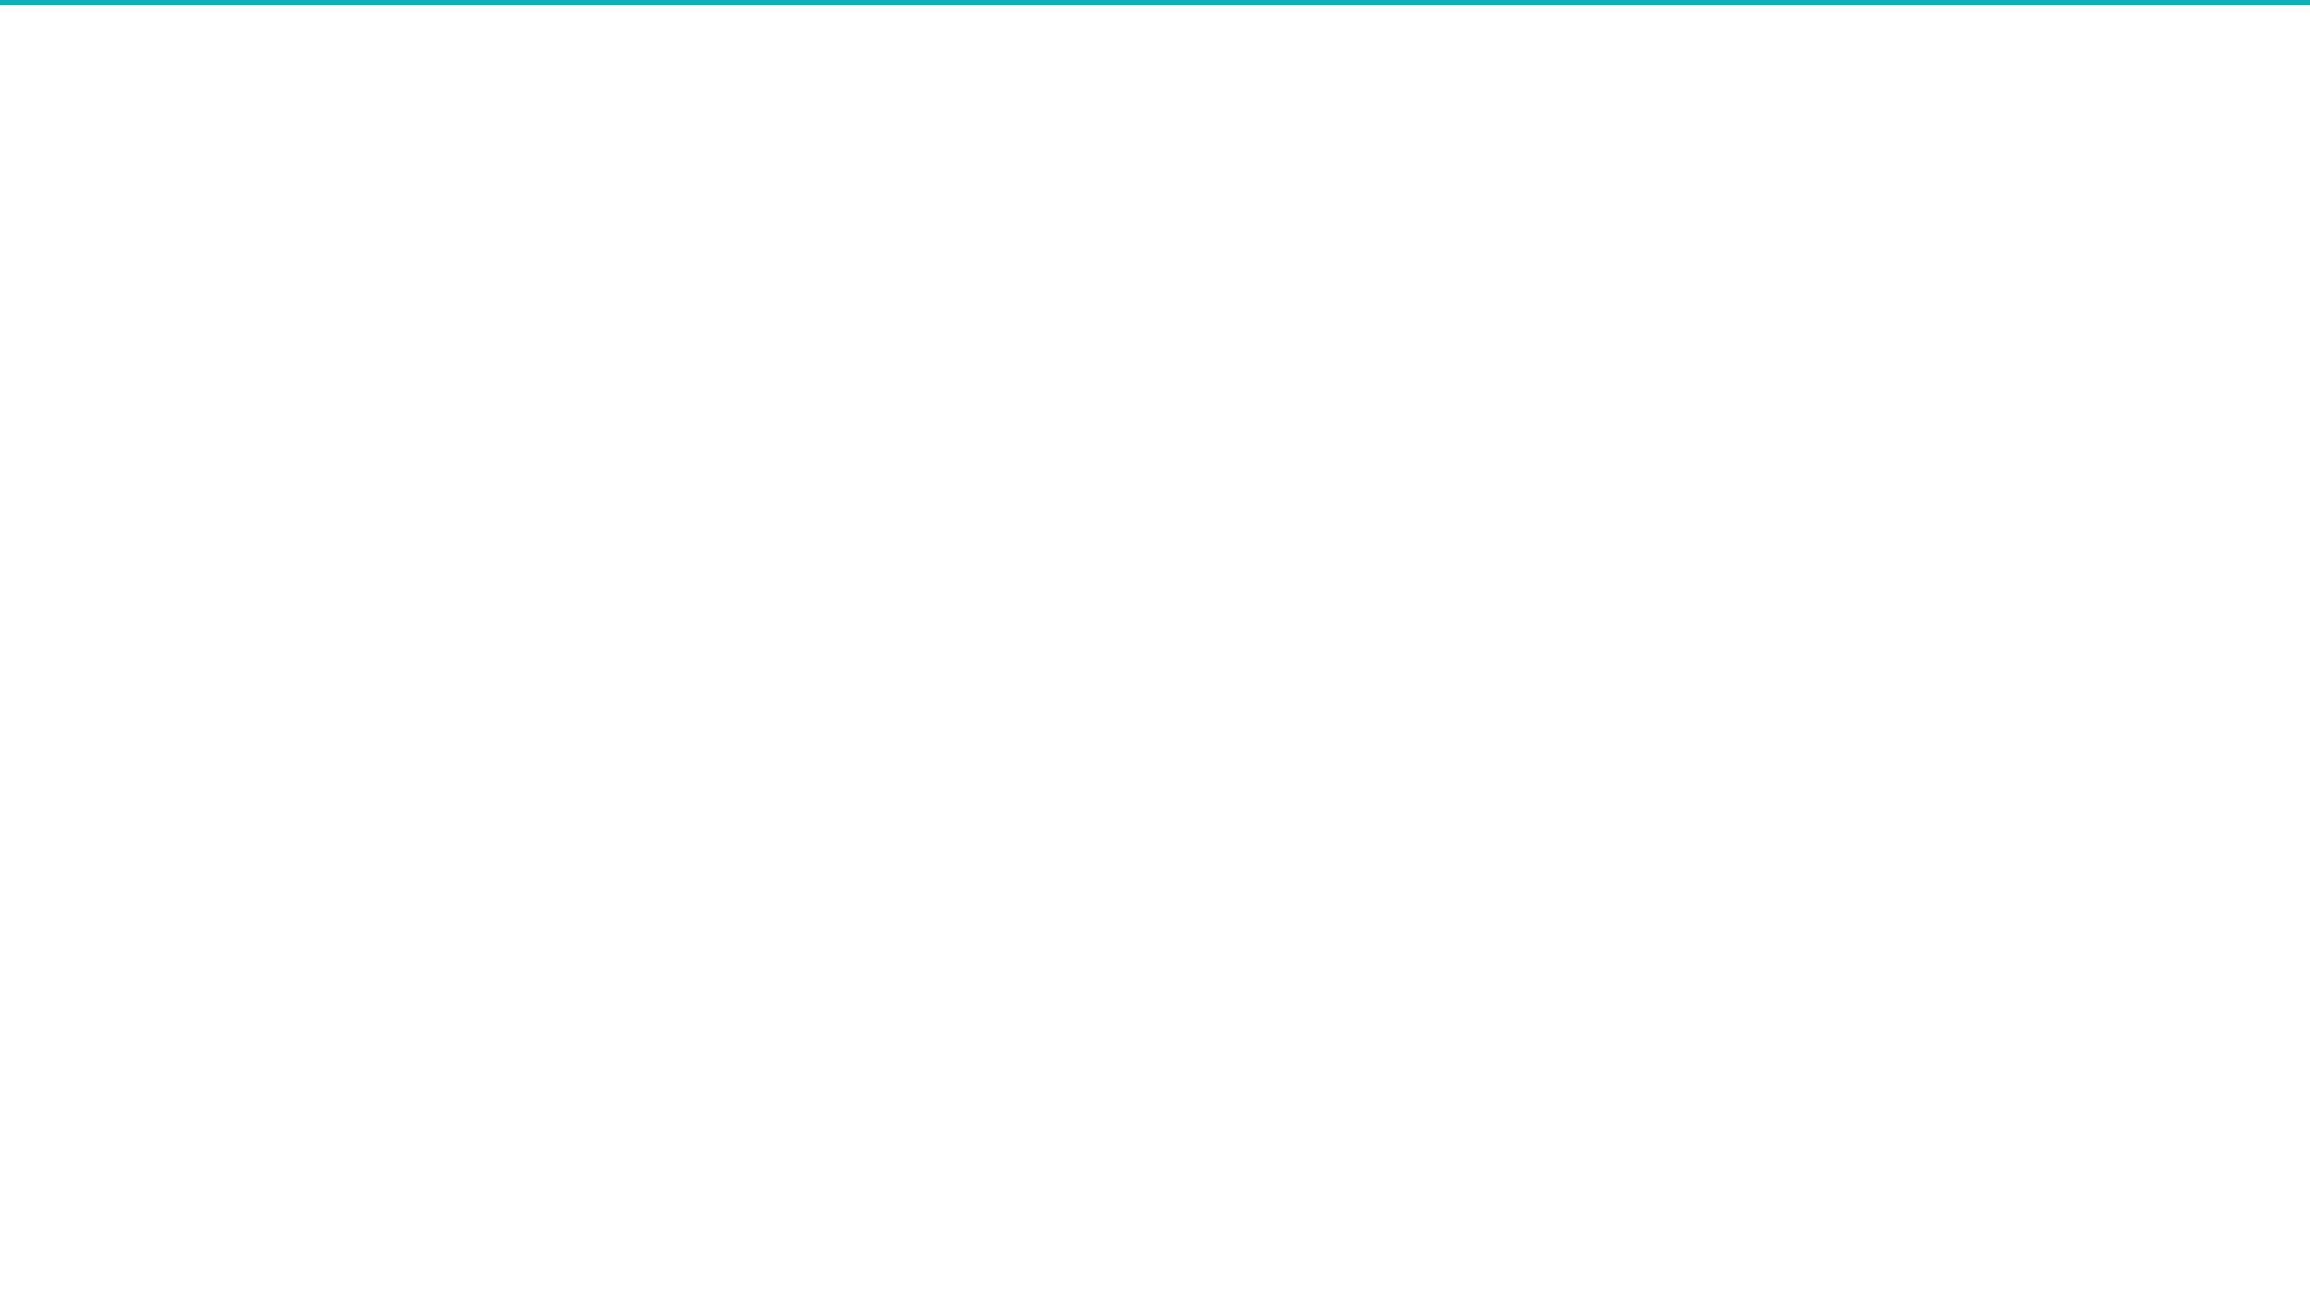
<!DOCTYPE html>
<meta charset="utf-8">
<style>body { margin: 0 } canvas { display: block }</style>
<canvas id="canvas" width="2310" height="1305"></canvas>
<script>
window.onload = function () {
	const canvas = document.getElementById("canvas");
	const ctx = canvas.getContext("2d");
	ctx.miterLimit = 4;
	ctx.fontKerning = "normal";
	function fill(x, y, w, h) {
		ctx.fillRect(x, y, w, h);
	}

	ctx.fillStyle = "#FFFFFF";
	fill(0, 0, 2310, 1305);
	ctx.fillStyle = "#10B0B8";
	fill(0, 0, 2310, 5);
};
</script>
